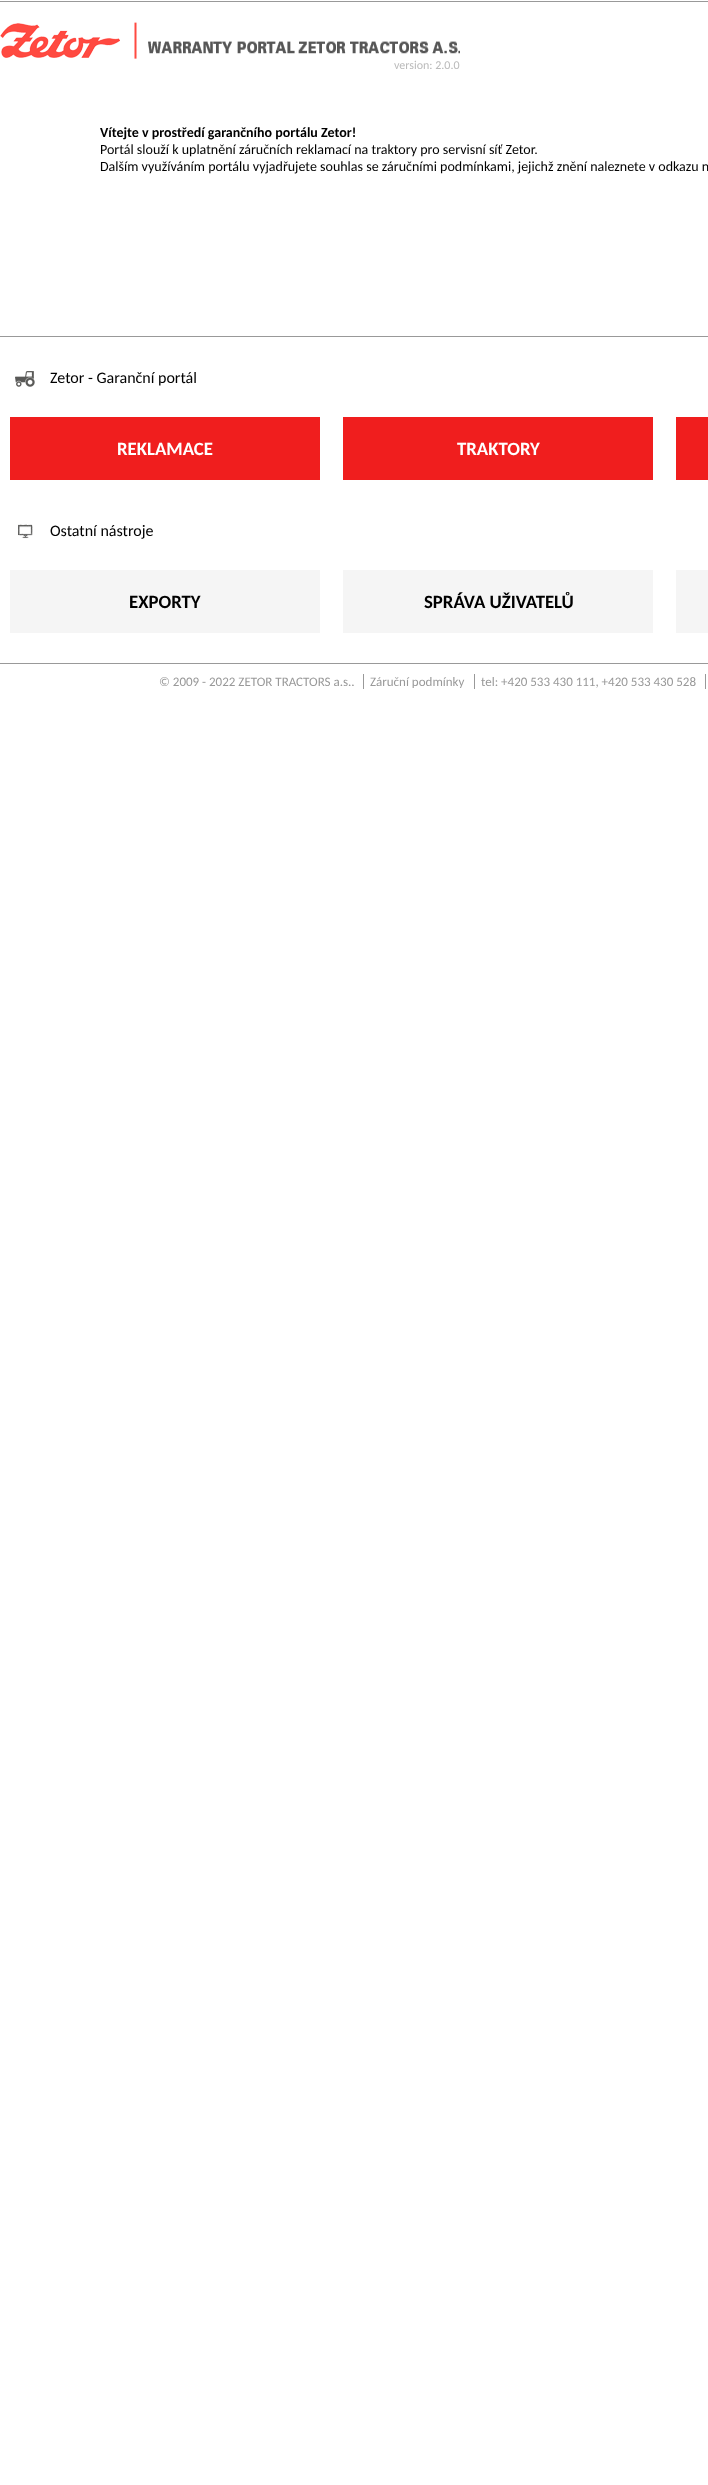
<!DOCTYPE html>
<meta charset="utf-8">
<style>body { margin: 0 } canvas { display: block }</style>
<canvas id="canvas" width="708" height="2485"></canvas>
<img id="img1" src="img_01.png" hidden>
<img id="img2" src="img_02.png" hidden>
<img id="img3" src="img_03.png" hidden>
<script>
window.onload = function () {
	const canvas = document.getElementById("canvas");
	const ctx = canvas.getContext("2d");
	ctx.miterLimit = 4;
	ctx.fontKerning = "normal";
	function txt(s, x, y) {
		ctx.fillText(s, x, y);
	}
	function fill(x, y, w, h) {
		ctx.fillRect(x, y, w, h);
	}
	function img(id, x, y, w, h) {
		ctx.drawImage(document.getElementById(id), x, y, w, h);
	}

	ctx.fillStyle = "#FFFFFF";
	fill(0, 0, 708, 2485);
	ctx.fillStyle = "#999999";
	fill(0, 1, 708, 1);
	img("img1", 0, 22, 460, 37);
	fill(0, 336, 708, 1);
	img("img2", 15, 371, 20, 16);
	ctx.fillStyle = "#F01E1E";
	fill(10, 417, 310, 63);
	fill(343, 417, 310, 63);
	fill(676, 417, 32, 63);
	img("img3", 18, 524, 15, 15);
	ctx.fillStyle = "#F5F5F5";
	fill(10, 570, 310, 63);
	fill(343, 570, 310, 63);
	fill(676, 570, 32, 63);
	ctx.fillStyle = "#999999";
	fill(0, 663, 708, 1);
	fill(363, 674, 1, 15);
	fill(474, 674, 1, 15);
	fill(705, 674, 1, 15);
	ctx.font = "12px Carlito";
	ctx.fillStyle = "#BBBBBB";
	txt("version: 2.0.0", 394, 69);
	ctx.font = "bold 14px Carlito";
	ctx.fillStyle = "#000000";
	txt("Vítejte v prostředí garančního portálu Zetor!", 100, 137);
	ctx.font = "14px Carlito";
	txt("Portál slouží k uplatnění záručních reklamací na traktory pro servisní síť Zetor.", 100, 154);
	txt("Dalším využíváním portálu vyjadřujete souhlas se záručními podmínkami, jejichž znění naleznete v odkazu n", 100, 171);
	ctx.font = "16px Carlito";
	txt("Zetor - Garanční portál", 50, 383);
	ctx.font = "bold 18.75px Carlito";
	ctx.fillStyle = "#FFFFFF";
	txt("REKLAMACE", 117, 455);
	txt("TRAKTORY", 457, 455);
	ctx.font = "16px Carlito";
	ctx.fillStyle = "#000000";
	txt("Ostatní nástroje", 50, 536);
	ctx.font = "bold 18.75px Carlito";
	txt("EXPORTY", 129, 608);
	txt("SPRÁVA UŽIVATELŮ", 424, 608);
	ctx.font = "13px Carlito";
	ctx.fillStyle = "#999999";
	txt("© 2009 - 2022 ZETOR TRACTORS a.s..", 159, 686);
	txt("Záruční podmínky", 370, 686);
	txt("tel: +420 533 430 111, +420 533 430 528", 481, 686);
};
</script>
